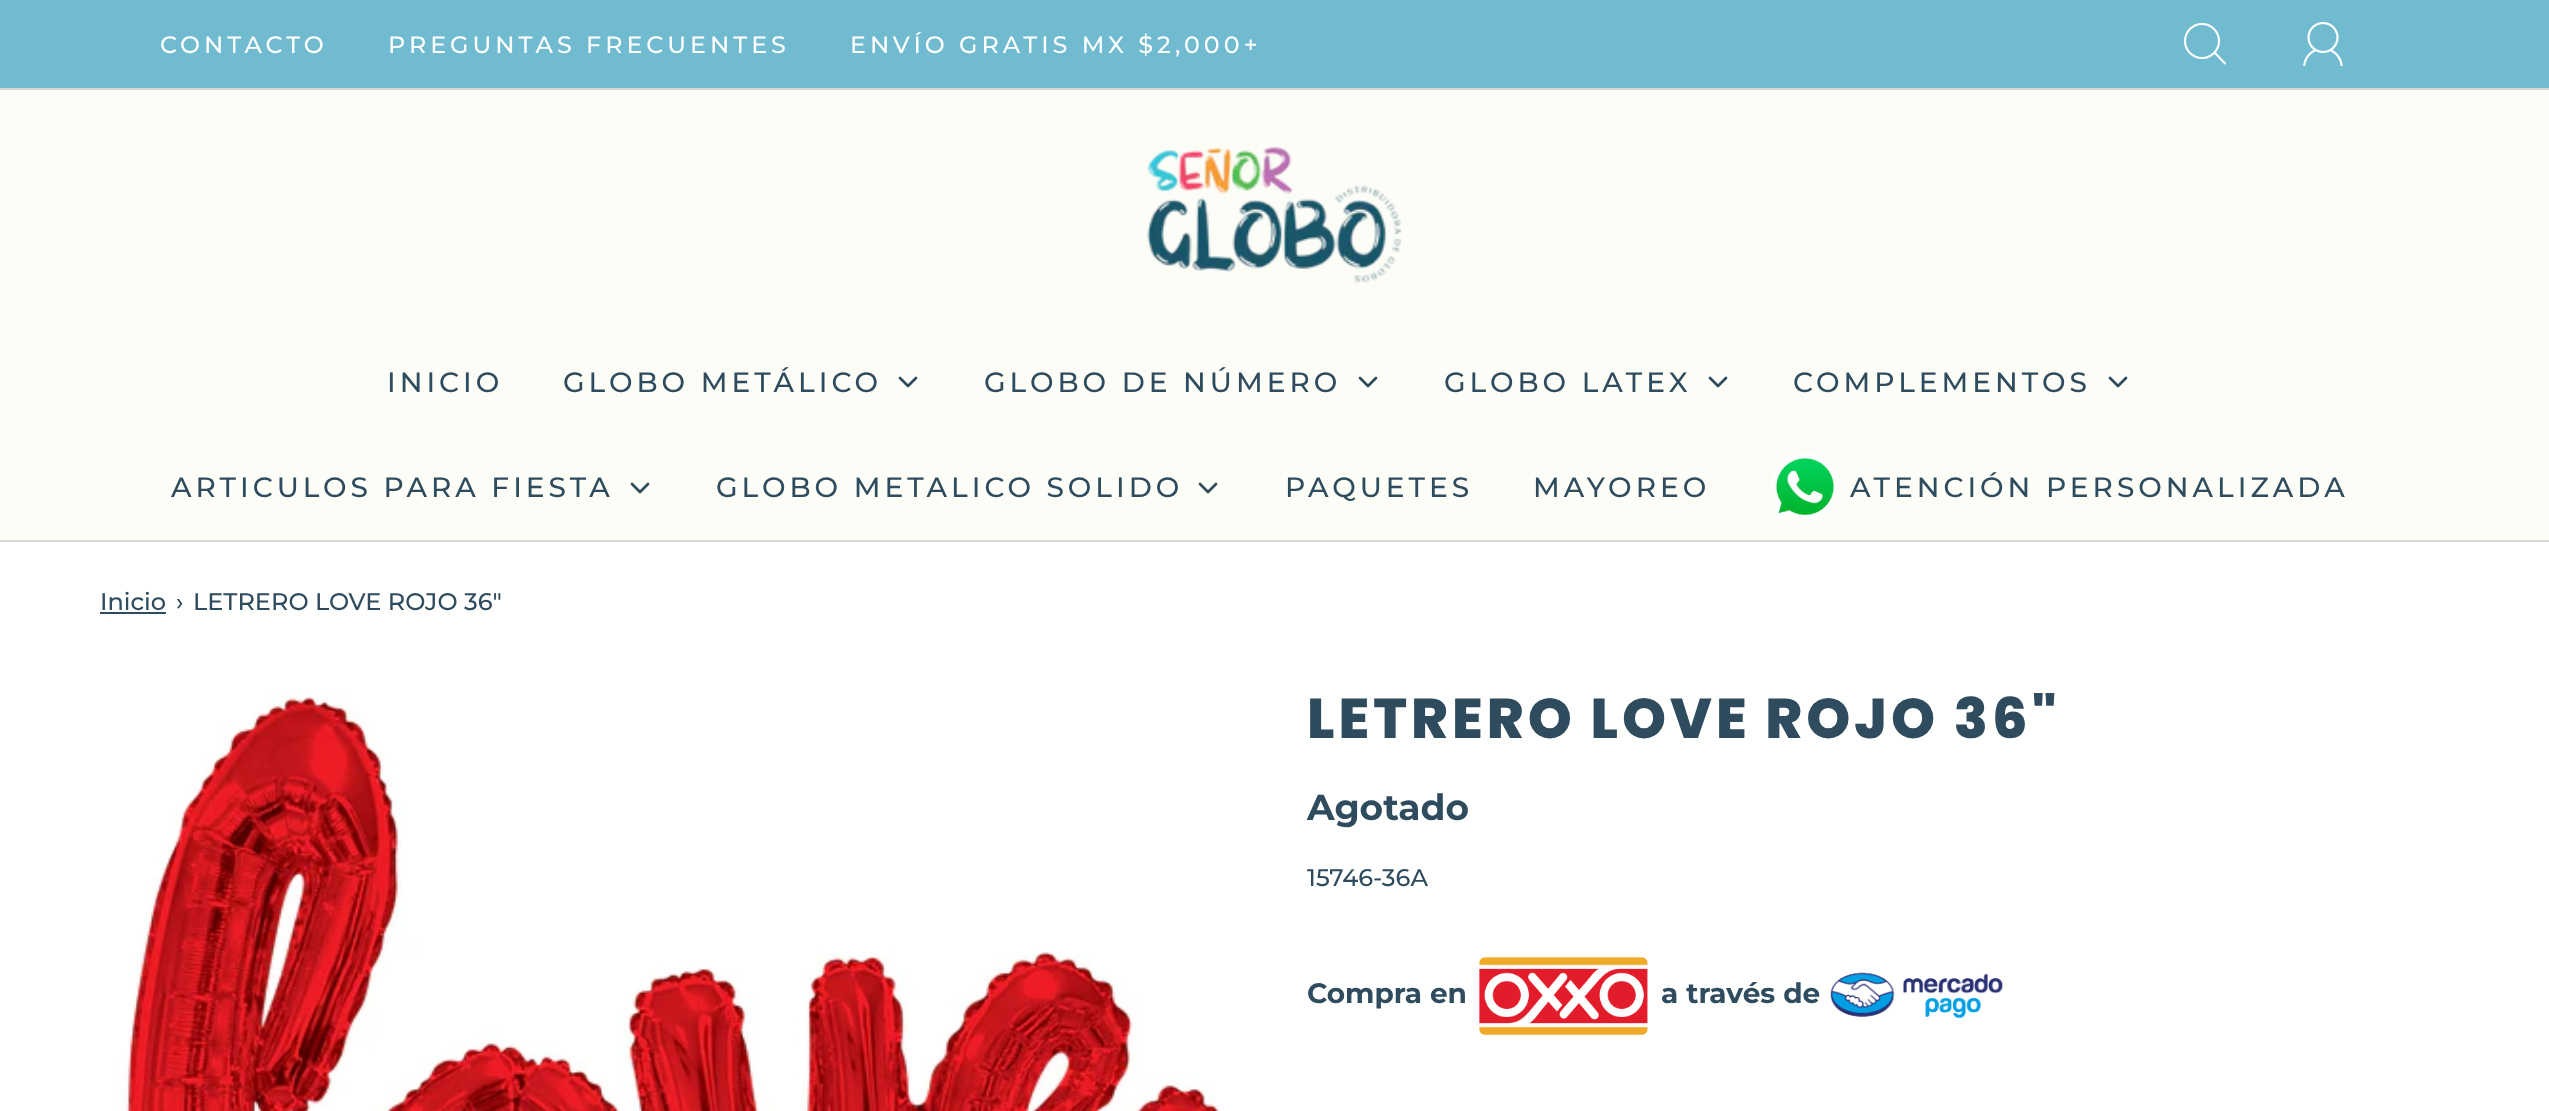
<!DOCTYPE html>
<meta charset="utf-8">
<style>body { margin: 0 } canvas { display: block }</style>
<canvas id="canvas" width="2549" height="1111"></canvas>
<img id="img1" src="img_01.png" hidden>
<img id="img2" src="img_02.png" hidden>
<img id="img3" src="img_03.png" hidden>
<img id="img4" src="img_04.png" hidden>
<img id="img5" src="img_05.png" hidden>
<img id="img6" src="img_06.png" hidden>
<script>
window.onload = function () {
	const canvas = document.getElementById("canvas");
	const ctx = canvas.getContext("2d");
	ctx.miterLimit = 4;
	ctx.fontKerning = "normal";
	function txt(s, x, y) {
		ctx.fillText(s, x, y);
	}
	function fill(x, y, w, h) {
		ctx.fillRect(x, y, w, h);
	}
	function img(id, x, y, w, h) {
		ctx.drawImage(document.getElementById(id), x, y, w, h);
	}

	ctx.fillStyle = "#FFFFFF";
	fill(0, 0, 2549, 1111);
	ctx.fillStyle = "#FCFDF7";
	fill(0, 90, 2549, 450);
	ctx.fillStyle = "#D7D7D7";
	fill(0, 540, 2549, 2);
	ctx.fillStyle = "#70BBD0";
	fill(0, 0, 2549, 88);
	ctx.fillStyle = "#D7D7D7";
	fill(0, 88, 2549, 2);
	ctx.beginPath();
	ctx.arc(2202, 41, 17, 0, Math.PI * 2);
	ctx.strokeStyle = "#FFFFFF";
	ctx.lineWidth = 2.1;
	ctx.stroke();
	ctx.beginPath();
	ctx.moveTo(2214, 52);
	ctx.lineTo(2225.5, 64);
	ctx.stroke();
	img("img1", 2303, 22, 40, 44);
	img("img2", 1147, 146, 255, 137);
	ctx.beginPath();
	ctx.moveTo(900, 378);
	ctx.lineTo(908, 386);
	ctx.lineTo(916, 378);
	ctx.strokeStyle = "#2F4B5E";
	ctx.lineWidth = 2.7;
	ctx.lineCap = "round";
	ctx.lineJoin = "round";
	ctx.stroke();
	ctx.beginPath();
	ctx.moveTo(1360, 378);
	ctx.lineTo(1368, 386);
	ctx.lineTo(1376, 378);
	ctx.stroke();
	ctx.beginPath();
	ctx.moveTo(1710, 378);
	ctx.lineTo(1718, 386);
	ctx.lineTo(1726, 378);
	ctx.stroke();
	ctx.beginPath();
	ctx.moveTo(2110, 378);
	ctx.lineTo(2118, 386);
	ctx.lineTo(2126, 378);
	ctx.stroke();
	ctx.beginPath();
	ctx.moveTo(632, 484);
	ctx.lineTo(640, 492);
	ctx.lineTo(648, 484);
	ctx.stroke();
	ctx.beginPath();
	ctx.moveTo(1200, 484);
	ctx.lineTo(1208, 492);
	ctx.lineTo(1216, 484);
	ctx.stroke();
	img("img3", 1771, 453, 68, 68);
	ctx.fillStyle = "#2F4B5E";
	fill(100, 612, 66, 2);
	img("img4", 116, 695, 1104, 416);
	img("img5", 1479, 957, 169, 78);
	img("img6", 1830, 972, 174, 47);
	ctx.letterSpacing = "4px";
	ctx.font = "500 23.75px Montserrat";
	ctx.fillStyle = "#FFFFFF";
	txt("CONTACTO", 160, 53);
	txt("PREGUNTAS FRECUENTES", 388, 53);
	txt("ENVÍO GRATIS MX $2,000+", 850, 53);
	ctx.font = "500 28px Montserrat";
	ctx.fillStyle = "#2F4B5E";
	txt("INICIO", 387, 392);
	txt("GLOBO METÁLICO", 563, 392);
	txt("GLOBO DE NÚMERO", 984, 392);
	txt("GLOBO LATEX", 1444, 392);
	txt("COMPLEMENTOS", 1793, 392);
	txt("ARTICULOS PARA FIESTA", 171, 497);
	txt("GLOBO METALICO SOLIDO", 716, 497);
	txt("PAQUETES", 1285, 497);
	txt("MAYOREO", 1533, 497);
	txt("ATENCIÓN PERSONALIZADA", 1850, 497);
	ctx.letterSpacing = "0px";
	ctx.font = "500 24px Montserrat";
	txt("Inicio", 100, 610);
	txt("›", 176, 610);
	txt("LETRERO LOVE ROJO 36\"", 193, 610);
	ctx.letterSpacing = "4px";
	ctx.font = "800 56px Poppins";
	txt("LETRERO LOVE ROJO 36\"", 1307, 738);
	ctx.letterSpacing = "0px";
	ctx.font = "bold 36px Montserrat";
	txt("Agotado", 1307, 820);
	ctx.font = "500 24px Montserrat";
	txt("15746-36A", 1307, 886);
	ctx.font = "bold 28px Montserrat";
	txt("Compra en", 1307, 1003);
	txt("a través de", 1661, 1003);
};
</script>
